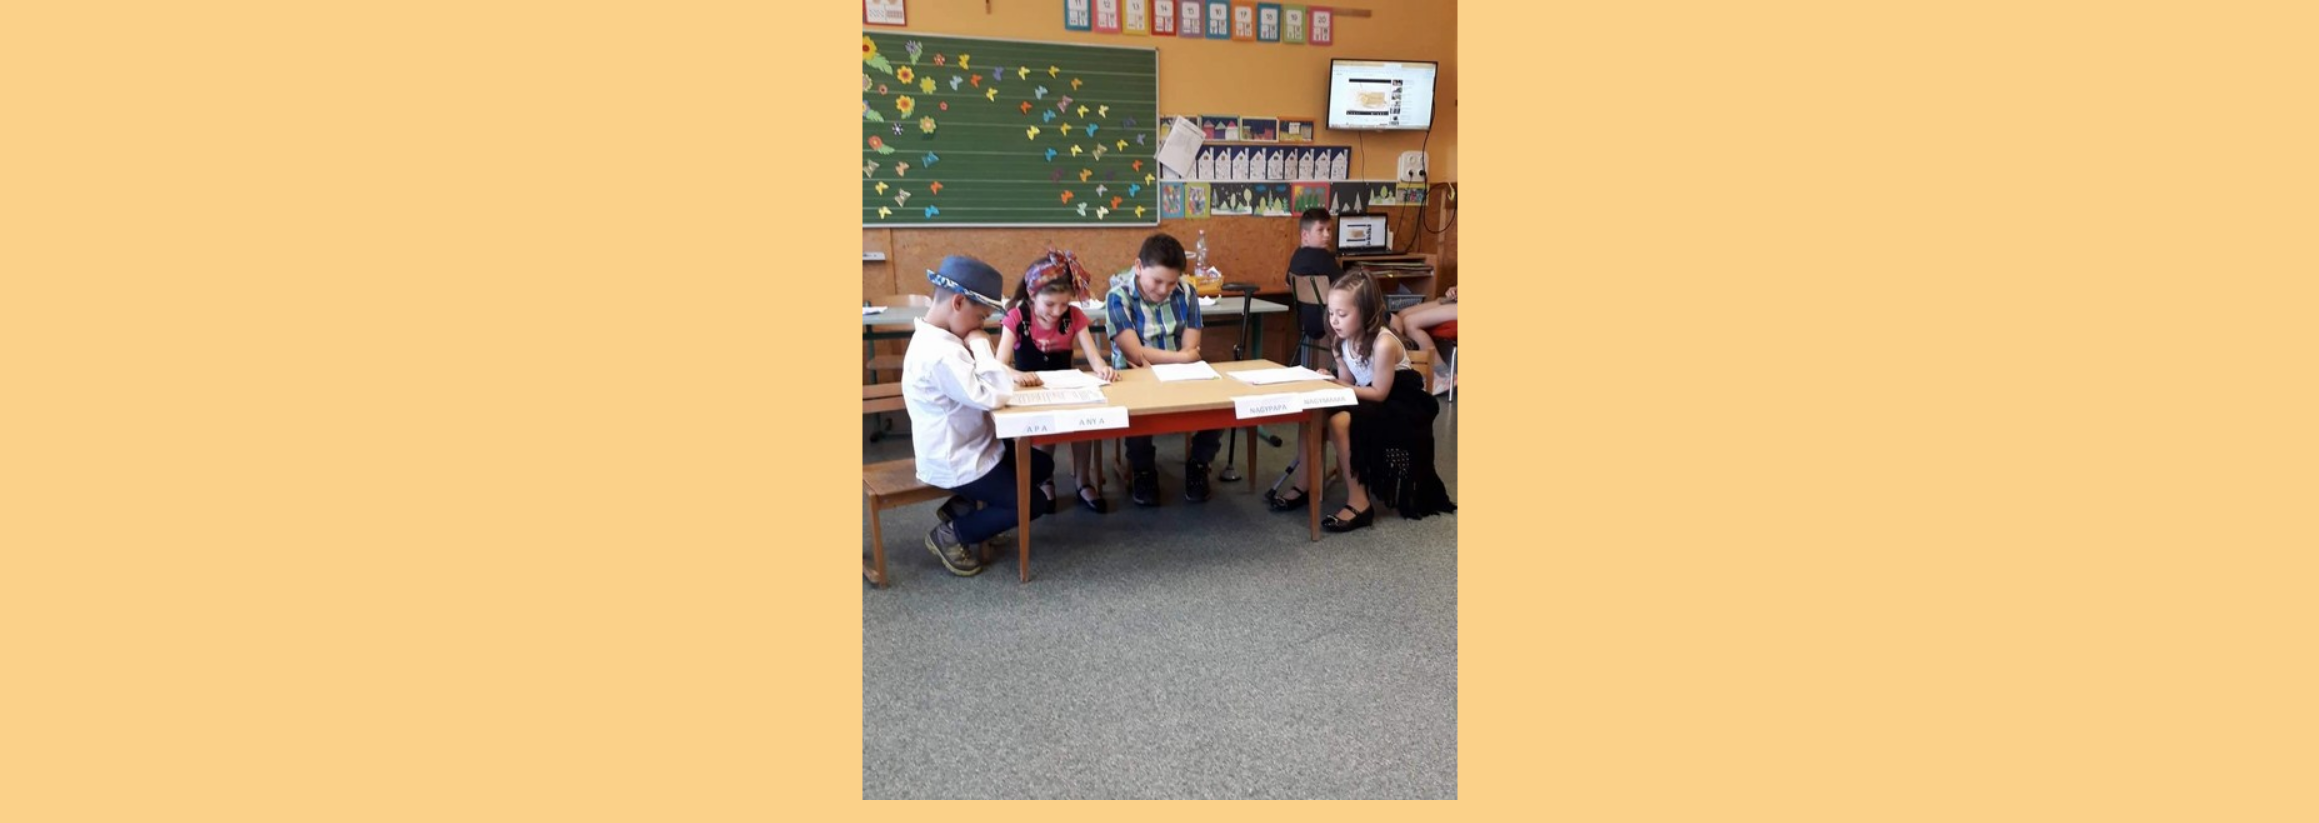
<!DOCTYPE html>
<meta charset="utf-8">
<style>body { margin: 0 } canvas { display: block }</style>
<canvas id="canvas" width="2319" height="823"></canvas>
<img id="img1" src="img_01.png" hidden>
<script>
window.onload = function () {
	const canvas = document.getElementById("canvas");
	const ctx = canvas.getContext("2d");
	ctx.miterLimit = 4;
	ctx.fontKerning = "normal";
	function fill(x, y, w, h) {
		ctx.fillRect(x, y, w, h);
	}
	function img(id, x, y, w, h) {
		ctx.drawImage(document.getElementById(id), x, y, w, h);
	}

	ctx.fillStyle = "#FBD189";
	fill(0, 0, 2319, 823);
	img("img1", 862, 0, 596, 800);
};
</script>
